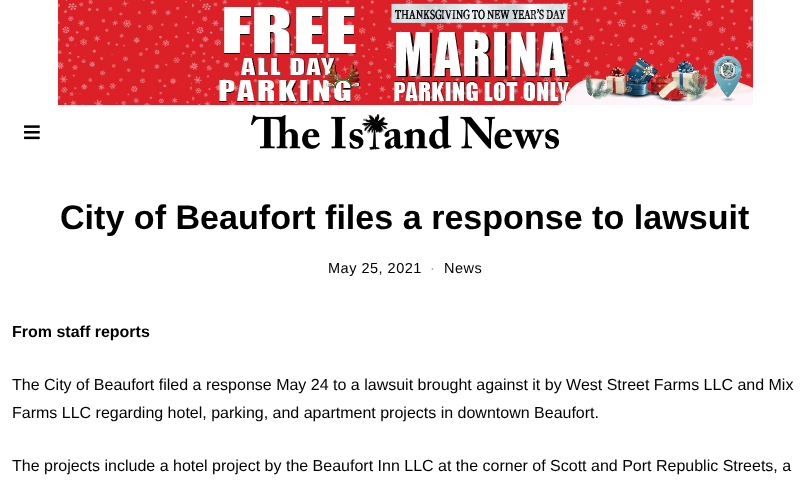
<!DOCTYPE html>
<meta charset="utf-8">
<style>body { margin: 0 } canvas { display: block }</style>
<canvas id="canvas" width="810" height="488"></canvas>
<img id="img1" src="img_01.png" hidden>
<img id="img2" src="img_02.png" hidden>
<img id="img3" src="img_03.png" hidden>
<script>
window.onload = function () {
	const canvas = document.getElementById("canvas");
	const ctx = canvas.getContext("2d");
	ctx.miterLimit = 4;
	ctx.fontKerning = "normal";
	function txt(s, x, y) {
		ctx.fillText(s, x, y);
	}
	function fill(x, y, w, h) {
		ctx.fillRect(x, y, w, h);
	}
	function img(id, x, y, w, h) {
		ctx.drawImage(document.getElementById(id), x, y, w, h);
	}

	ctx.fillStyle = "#FFFFFF";
	fill(0, 0, 810, 488);
	img("img1", 58, 0, 695, 105);
	img("img2", 24, 125, 16, 15);
	img("img3", 251, 114, 308, 36);
	ctx.font = "bold 34.1px Liberation Sans";
	ctx.fillStyle = "#000000";
	txt("City of Beaufort files a response to lawsuit", 60, 229);
	ctx.letterSpacing = "0.5px";
	ctx.font = "14.5px Liberation Sans";
	txt("May 25, 2021", 328, 273);
	ctx.fillStyle = "#999999";
	txt("·", 430, 273);
	ctx.fillStyle = "#000000";
	txt("News", 444, 273);
	ctx.letterSpacing = "0px";
	ctx.font = "bold 16px Liberation Sans";
	txt("From staff reports", 12, 337);
	ctx.font = "16px Liberation Sans";
	txt("The City of Beaufort filed a response May 24 to a lawsuit brought against it by West Street Farms LLC and Mix", 12, 390);
	txt("Farms LLC regarding hotel, parking, and apartment projects in downtown Beaufort.", 12, 418);
	txt("The projects include a hotel project by the Beaufort Inn LLC at the corner of Scott and Port Republic Streets, a", 12, 471);
};
</script>
